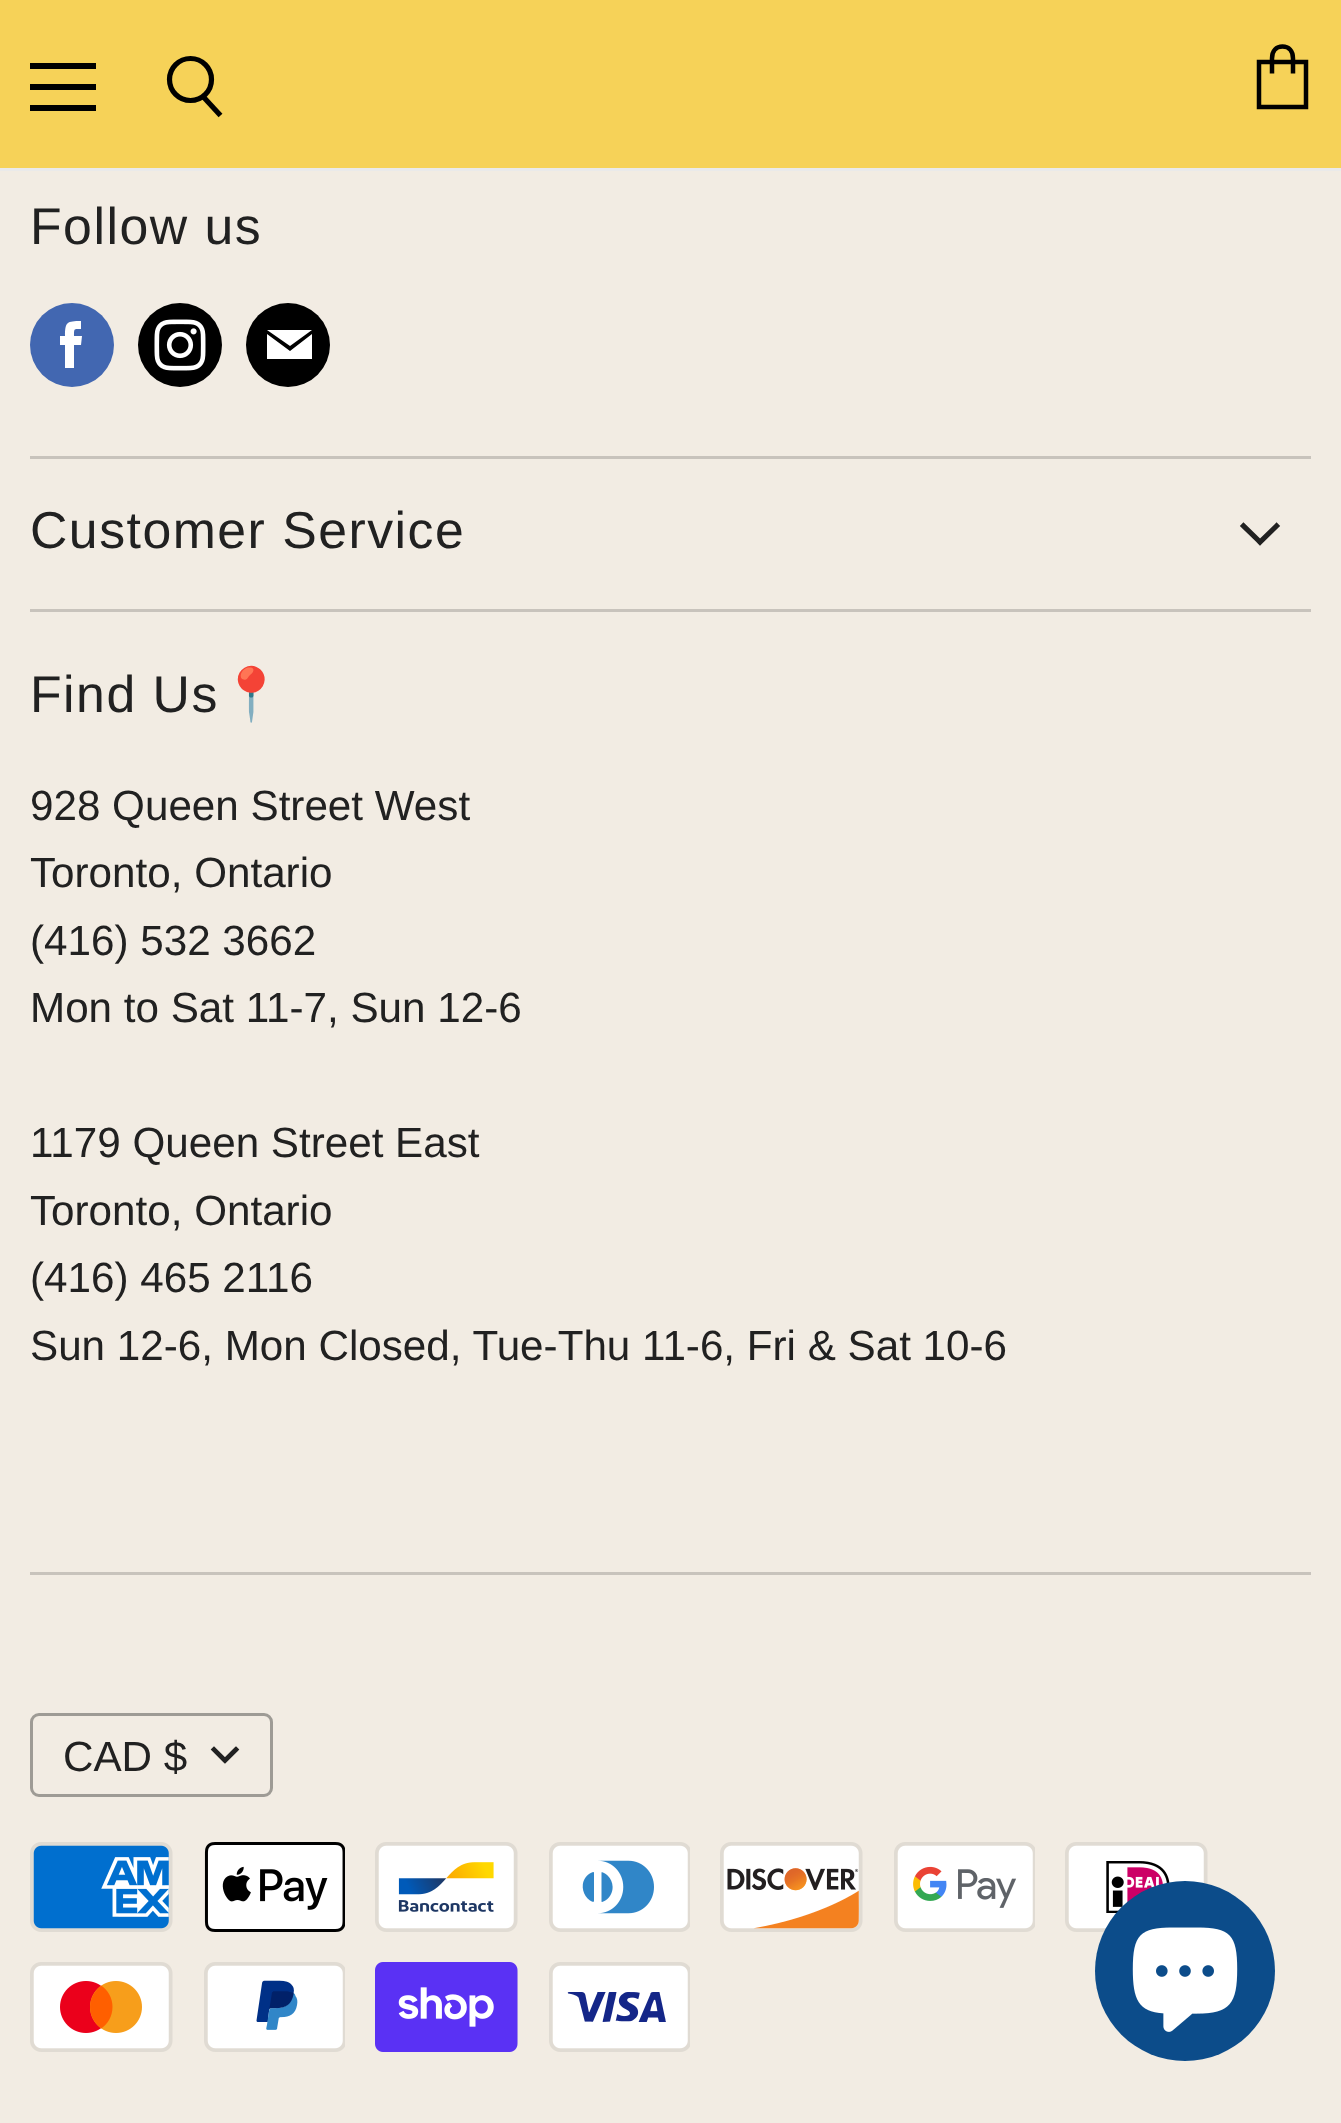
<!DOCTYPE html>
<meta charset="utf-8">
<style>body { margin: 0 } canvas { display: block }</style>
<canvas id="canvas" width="1341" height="2123"></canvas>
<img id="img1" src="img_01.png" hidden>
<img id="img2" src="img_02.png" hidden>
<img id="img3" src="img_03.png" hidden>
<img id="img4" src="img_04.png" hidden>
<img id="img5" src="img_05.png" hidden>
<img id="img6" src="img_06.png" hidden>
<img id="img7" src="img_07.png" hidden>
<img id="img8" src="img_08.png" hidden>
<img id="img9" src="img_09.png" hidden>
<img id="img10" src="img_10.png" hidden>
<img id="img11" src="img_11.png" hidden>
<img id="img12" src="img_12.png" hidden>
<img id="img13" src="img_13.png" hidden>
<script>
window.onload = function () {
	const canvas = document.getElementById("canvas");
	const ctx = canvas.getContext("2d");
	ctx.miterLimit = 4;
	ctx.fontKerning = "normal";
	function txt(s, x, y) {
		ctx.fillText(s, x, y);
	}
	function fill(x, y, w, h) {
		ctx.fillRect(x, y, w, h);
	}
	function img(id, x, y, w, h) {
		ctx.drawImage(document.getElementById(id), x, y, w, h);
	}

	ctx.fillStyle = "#F2ECE3";
	fill(0, 0, 1341, 2123);
	ctx.fillStyle = "#F6D258";
	fill(0, 0, 1341, 168);
	ctx.fillStyle = "#EAEAEA";
	fill(0, 168, 1341, 3);
	ctx.fillStyle = "#000000";
	fill(30, 63, 66, 6);
	fill(30, 84, 66, 6);
	fill(30, 105, 66, 6);
	ctx.beginPath();
	ctx.moveTo(220.5, 115.5);
	ctx.lineTo(203, 96.5);
	ctx.strokeStyle = "#000000";
	ctx.lineWidth = 5.2;
	ctx.stroke();
	ctx.beginPath();
	ctx.arc(190.5, 79.5, 21, 0, Math.PI * 2);
	ctx.stroke();
	ctx.beginPath();
	ctx.moveTo(1259, 62);
	ctx.lineTo(1306, 62);
	ctx.lineTo(1306, 107);
	ctx.lineTo(1259, 107);
	ctx.closePath();
	ctx.lineWidth = 4.5;
	ctx.stroke();
	ctx.beginPath();
	ctx.moveTo(1293, 73.5);
	ctx.lineTo(1293, 58.5);
	ctx.bezierCurveTo(1293, 50.5, 1288.5, 46.5, 1282.5, 46.5);
	ctx.bezierCurveTo(1276.5, 46.5, 1272, 50.5, 1272, 58.5);
	ctx.lineTo(1272, 73.5);
	ctx.stroke();
	ctx.fillStyle = "#C8C3BC";
	fill(30, 456, 1281, 3);
	ctx.fillStyle = "#4267B1";
	ctx.beginPath();
	ctx.arc(72, 345, 42, 0, Math.PI * 2);
	ctx.fill();
	ctx.fillStyle = "#FFFFFF";
	ctx.beginPath();
	ctx.moveTo(81, 345);
	ctx.lineTo(74, 345);
	ctx.lineTo(74, 368);
	ctx.lineTo(65, 368);
	ctx.lineTo(65, 345);
	ctx.lineTo(60, 345);
	ctx.lineTo(60, 336);
	ctx.lineTo(65, 336);
	ctx.bezierCurveTo(65, 322, 67, 321, 81, 321);
	ctx.lineTo(81, 329);
	ctx.bezierCurveTo(74, 329, 74, 328, 74, 336);
	ctx.lineTo(82, 336);
	ctx.closePath();
	ctx.fill("evenodd");
	ctx.fillStyle = "#000000";
	ctx.beginPath();
	ctx.arc(180, 345, 42, 0, Math.PI * 2);
	ctx.fill();
	img("img1", 154, 319, 52, 52);
	ctx.beginPath();
	ctx.arc(288, 345, 42, 0, Math.PI * 2);
	ctx.fill();
	ctx.fillStyle = "#FFFFFF";
	ctx.beginPath();
	ctx.moveTo(312, 330);
	ctx.lineTo(267, 330);
	ctx.lineTo(290, 346);
	ctx.closePath();
	ctx.moveTo(290, 351);
	ctx.lineTo(267, 334);
	ctx.lineTo(267, 359);
	ctx.lineTo(312, 359);
	ctx.lineTo(312, 334);
	ctx.closePath();
	ctx.fill("evenodd");
	ctx.fillStyle = "#C8C3BC";
	fill(30, 609, 1281, 3);
	ctx.beginPath();
	ctx.moveTo(1260, 542);
	ctx.lineTo(1276.5, 526);
	ctx.moveTo(1260, 542);
	ctx.lineTo(1243.5, 526);
	ctx.strokeStyle = "#212121";
	ctx.lineWidth = 5.2;
	ctx.lineCap = "square";
	ctx.stroke();
	fill(30, 1572, 1281, 3);
	ctx.beginPath();
	ctx.roundRect(31.5, 1714.5, 240, 81, 7.5);
	ctx.strokeStyle = "#9E9B95";
	ctx.lineWidth = 3;
	ctx.stroke();
	ctx.beginPath();
	ctx.moveTo(225, 1760.5);
	ctx.lineTo(236, 1749.5);
	ctx.moveTo(225, 1760.5);
	ctx.lineTo(214, 1749.5);
	ctx.strokeStyle = "#212121";
	ctx.lineWidth = 4.7;
	ctx.stroke();
	img("img2", 30, 1842, 143, 90);
	img("img3", 204, 1842, 141, 90);
	img("img4", 375, 1842, 143, 90);
	img("img5", 549, 1842, 141, 90);
	img("img6", 720, 1842, 143, 90);
	img("img7", 894, 1842, 141, 90);
	img("img8", 1065, 1842, 143, 90);
	img("img9", 30, 1962, 143, 90);
	img("img10", 204, 1962, 141, 90);
	img("img11", 375, 1962, 143, 90);
	img("img12", 549, 1962, 141, 90);
	ctx.fillStyle = "#0C4C8A";
	ctx.beginPath();
	ctx.arc(1185, 1971, 90, 0, Math.PI * 2);
	ctx.fill();
	img("img13", 1132, 1927, 106, 105);
	ctx.letterSpacing = "1.5px";
	ctx.font = "51.75px Liberation Sans";
	ctx.fillStyle = "#212121";
	txt("Follow us", 30, 244);
	txt("Customer Service", 30, 548);
	txt("Find Us", 30, 712);
	ctx.font = "51.75px Noto Color Emoji";
	txt("📍", 219, 712);
	ctx.letterSpacing = "0px";
	ctx.font = "42.2px Liberation Sans";
	txt("928 Queen Street West", 30, 820);
	txt("Toronto, Ontario", 30, 887);
	txt("(416) 532 3662", 30, 955);
	txt("Mon to Sat 11-7, Sun 12-6", 30, 1022);
	txt("1179 Queen Street East", 30, 1157);
	txt("Toronto, Ontario", 30, 1225);
	txt("(416) 465 2116", 30, 1292);
	txt("Sun 12-6, Mon Closed, Tue-Thu 11-6, Fri & Sat 10-6", 30, 1360);
	txt("CAD $", 63, 1771);
};
</script>
